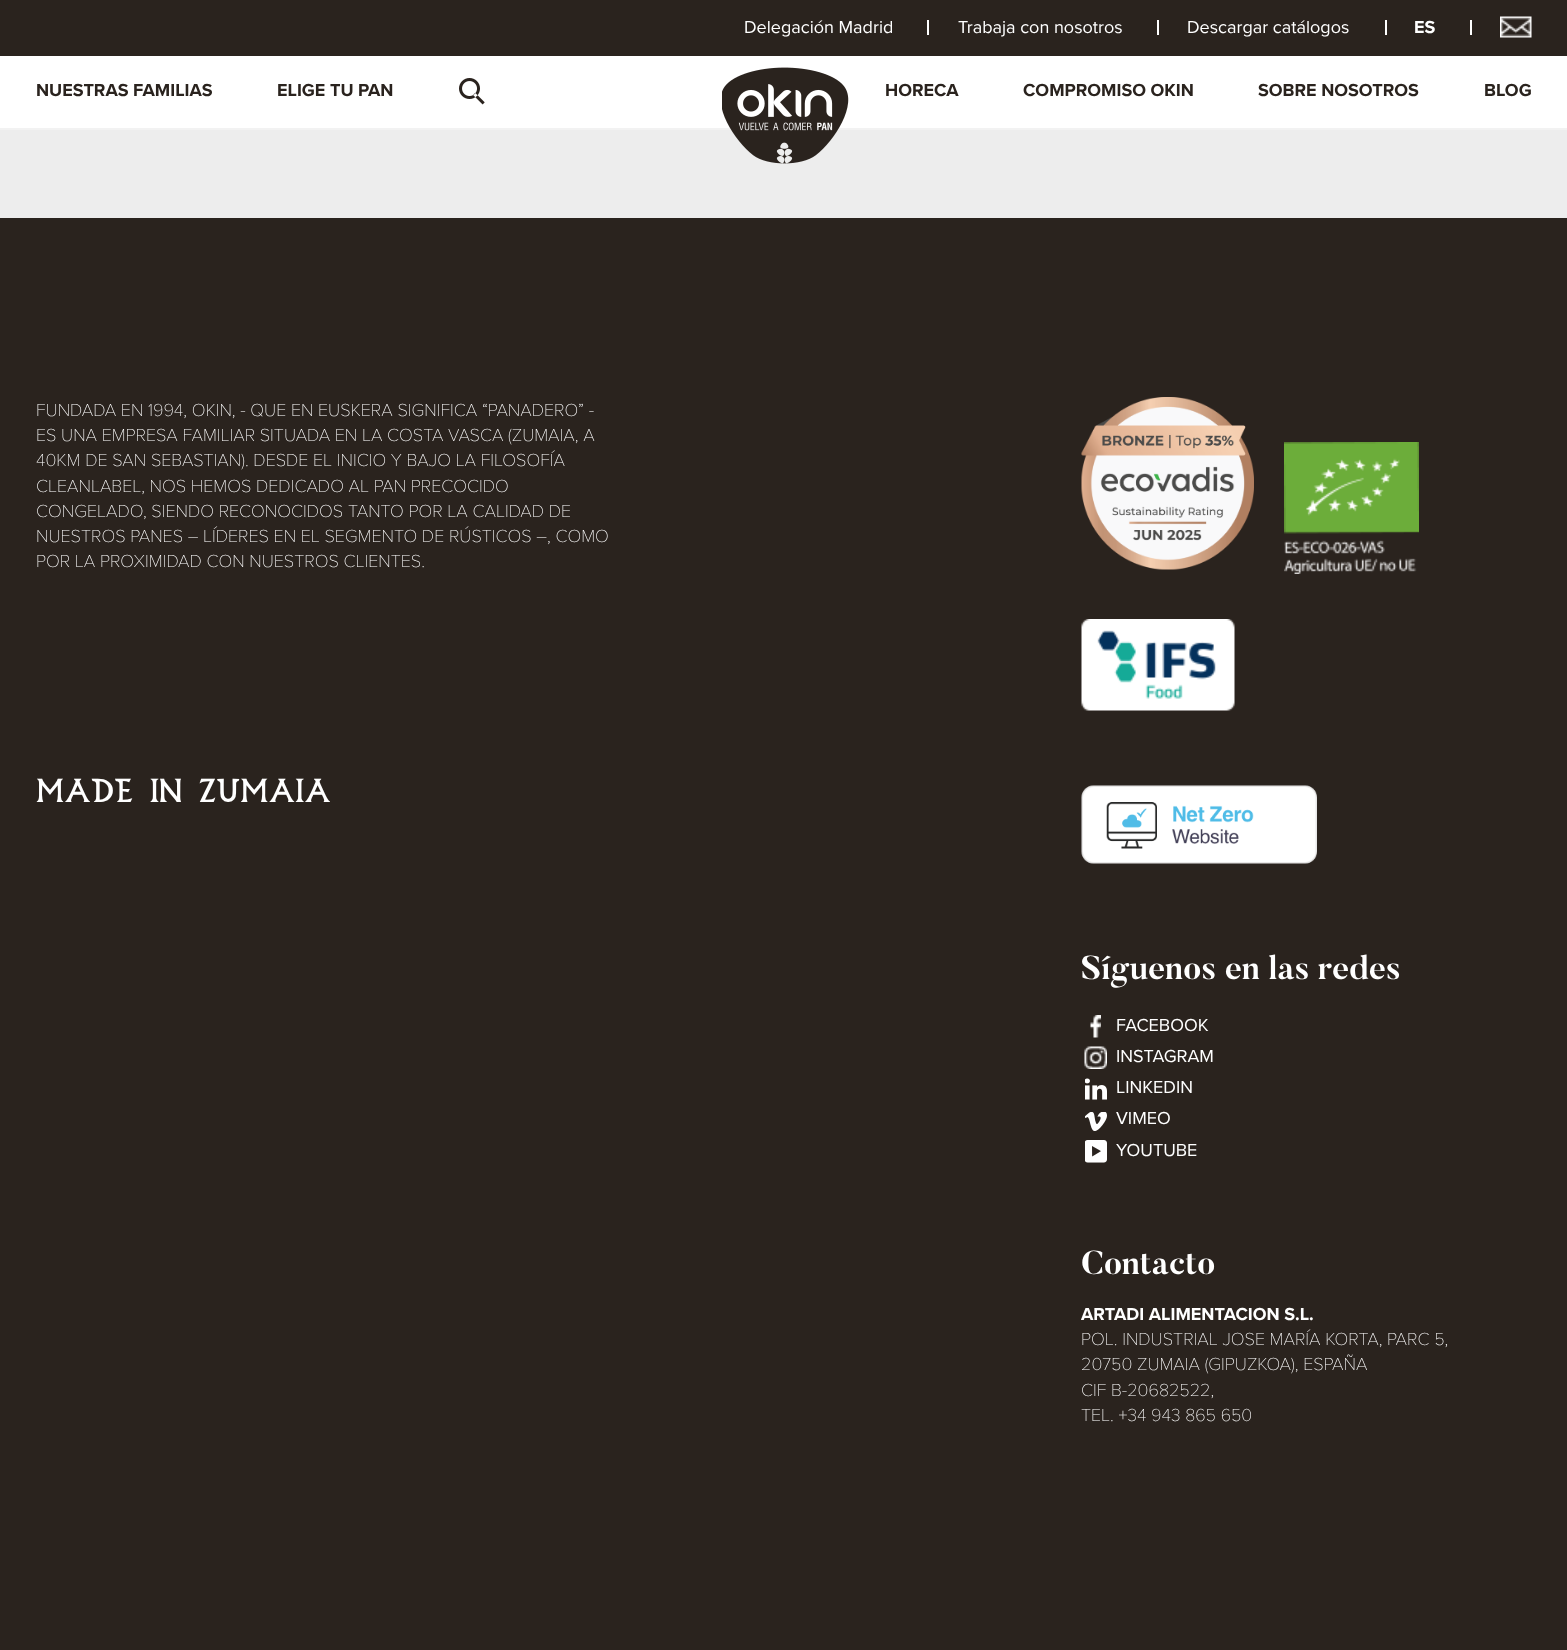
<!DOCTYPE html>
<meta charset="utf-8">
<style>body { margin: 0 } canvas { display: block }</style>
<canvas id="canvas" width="1567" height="1650"></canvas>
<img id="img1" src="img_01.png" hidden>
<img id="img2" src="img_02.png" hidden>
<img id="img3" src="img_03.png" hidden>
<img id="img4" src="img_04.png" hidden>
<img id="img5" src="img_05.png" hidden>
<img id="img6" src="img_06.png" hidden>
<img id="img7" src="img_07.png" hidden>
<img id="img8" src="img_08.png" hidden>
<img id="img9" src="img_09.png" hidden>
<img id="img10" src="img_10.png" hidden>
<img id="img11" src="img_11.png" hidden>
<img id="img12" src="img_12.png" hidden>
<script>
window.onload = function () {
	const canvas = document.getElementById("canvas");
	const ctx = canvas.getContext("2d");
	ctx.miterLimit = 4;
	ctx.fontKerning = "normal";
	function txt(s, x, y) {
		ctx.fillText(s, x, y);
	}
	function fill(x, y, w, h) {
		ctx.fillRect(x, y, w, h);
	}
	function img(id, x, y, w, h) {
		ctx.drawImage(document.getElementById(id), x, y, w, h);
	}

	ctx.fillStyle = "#EDEDED";
	fill(0, 0, 1567, 1650);
	ctx.fillStyle = "#2A231E";
	fill(0, 0, 1567, 56);
	ctx.fillStyle = "#FFFFFF";
	fill(927, 20, 2, 15);
	fill(1157, 20, 2, 15);
	fill(1385, 20, 2, 15);
	fill(1470, 20, 2, 15);
	img("img1", 1500, 16, 32, 22);
	fill(0, 56, 1567, 72);
	ctx.fillStyle = "#F2F2F2";
	fill(0, 128, 1567, 2);
	img("img2", 459, 78, 26, 27);
	img("img3", 722, 67, 127, 97);
	ctx.fillStyle = "#2A231E";
	fill(0, 218, 1567, 1432);
	img("img4", 1081, 397, 173, 173);
	img("img5", 1284, 442, 135, 132);
	img("img6", 1081, 619, 154, 92);
	img("img7", 1081, 785, 236, 79);
	img("img8", 1090, 1015, 11, 23);
	img("img9", 1084, 1046, 23, 23);
	img("img10", 1085, 1078, 22, 22);
	img("img11", 1085, 1112, 22, 19);
	img("img12", 1085, 1140, 22, 23);
	ctx.font = "18px Proxima Nova";
	ctx.fillStyle = "#FFFFFF";
	txt("Delegación Madrid", 744, 33);
	txt("Trabaja con nosotros", 958, 33);
	txt("Descargar catálogos", 1187, 33);
	ctx.font = "bold 18px Proxima Nova";
	txt("ES", 1414, 33);
	ctx.fillStyle = "#2A231E";
	txt("NUESTRAS FAMILIAS", 36, 96);
	txt("ELIGE TU PAN", 277, 96);
	txt("HORECA", 885, 96);
	txt("COMPROMISO OKIN", 1023, 96);
	txt("SOBRE NOSOTROS", 1258, 96);
	txt("BLOG", 1484, 96);
	ctx.font = "100 18px Proxima Nova";
	ctx.fillStyle = "#FFFFFF";
	txt("FUNDADA EN 1994, OKIN, - QUE EN EUSKERA SIGNIFICA “PANADERO” -", 36, 416);
	txt("ES UNA EMPRESA FAMILIAR SITUADA EN LA COSTA VASCA (ZUMAIA, A", 36, 441);
	txt("40KM DE SAN SEBASTIAN). DESDE EL INICIO Y BAJO LA FILOSOFÍA", 36, 466);
	txt("CLEANLABEL, NOS HEMOS DEDICADO AL PAN PRECOCIDO", 36, 492);
	txt("CONGELADO, SIENDO RECONOCIDOS TANTO POR LA CALIDAD DE", 36, 517);
	txt("NUESTROS PANES – LÍDERES EN EL SEGMENTO DE RÚSTICOS –, COMO", 36, 542);
	txt("POR LA PROXIMIDAD CON NUESTROS CLIENTES.", 36, 567);
	ctx.font = "33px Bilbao";
	txt("MADE IN ZUMAIA", 36, 802);
	ctx.font = "bold 33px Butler";
	txt("Síguenos en las redes", 1081, 979);
	ctx.font = "18px Proxima Nova";
	txt("FACEBOOK", 1116, 1031);
	txt("INSTAGRAM", 1116, 1062);
	txt("LINKEDIN", 1116, 1093);
	txt("VIMEO", 1116, 1124);
	txt("YOUTUBE", 1116, 1156);
	ctx.font = "bold 33px Butler";
	txt("Contacto", 1081, 1274);
	ctx.font = "bold 18px Proxima Nova";
	txt("ARTADI ALIMENTACION S.L.", 1081, 1320);
	ctx.font = "100 18px Proxima Nova";
	txt("POL. INDUSTRIAL JOSE MARÍA KORTA, PARC 5,", 1081, 1345);
	txt("20750 ZUMAIA (GIPUZKOA), ESPAÑA", 1081, 1370);
	txt("CIF B-20682522,", 1081, 1396);
	txt("TEL. +34 943 865 650", 1081, 1421);
};
</script>
